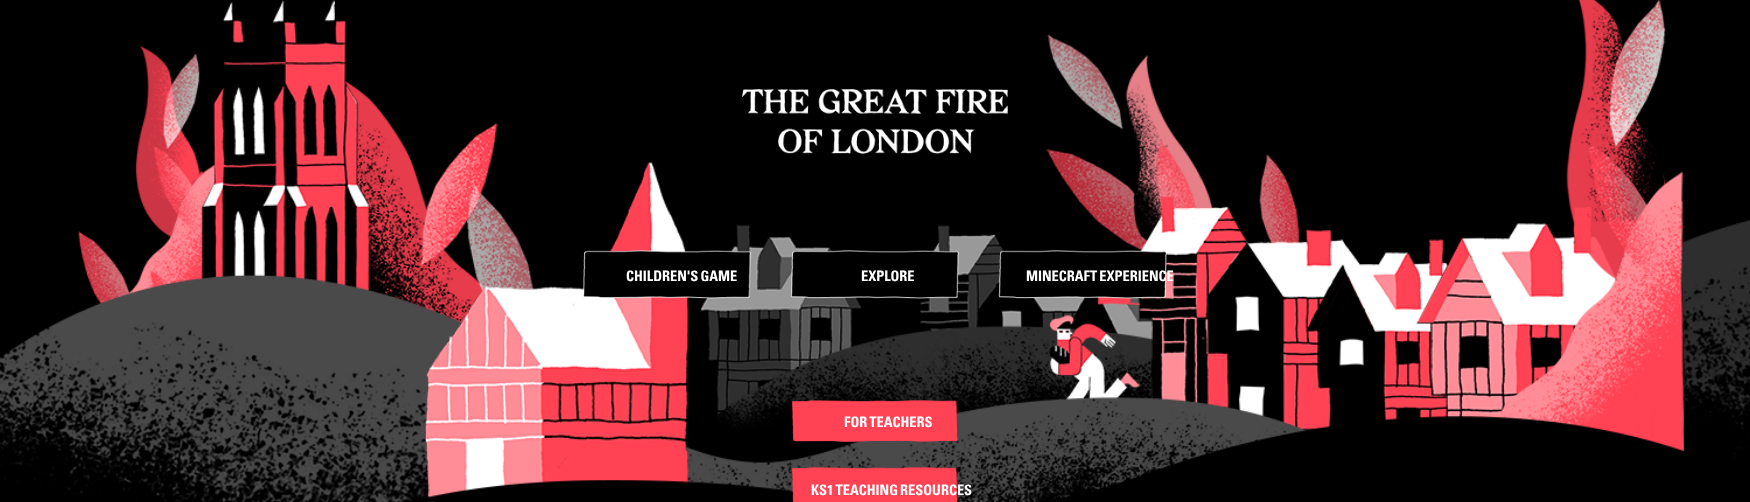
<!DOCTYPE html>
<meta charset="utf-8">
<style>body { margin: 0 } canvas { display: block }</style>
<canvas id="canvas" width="1750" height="502"></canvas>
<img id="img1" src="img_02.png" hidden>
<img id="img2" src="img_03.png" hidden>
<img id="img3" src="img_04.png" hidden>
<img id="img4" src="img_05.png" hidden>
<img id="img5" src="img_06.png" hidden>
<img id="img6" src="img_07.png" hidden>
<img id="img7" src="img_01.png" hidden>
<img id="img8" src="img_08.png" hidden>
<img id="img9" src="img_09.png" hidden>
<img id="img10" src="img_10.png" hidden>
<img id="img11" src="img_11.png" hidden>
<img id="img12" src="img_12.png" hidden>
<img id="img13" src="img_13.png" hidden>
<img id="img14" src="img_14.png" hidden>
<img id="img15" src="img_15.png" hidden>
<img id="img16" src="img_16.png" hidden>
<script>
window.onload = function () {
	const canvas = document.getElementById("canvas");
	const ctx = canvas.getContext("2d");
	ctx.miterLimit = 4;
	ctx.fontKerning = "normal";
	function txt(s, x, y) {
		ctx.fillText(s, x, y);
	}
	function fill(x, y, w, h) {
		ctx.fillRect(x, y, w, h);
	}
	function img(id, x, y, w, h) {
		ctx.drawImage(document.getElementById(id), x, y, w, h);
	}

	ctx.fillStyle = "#000000";
	fill(0, 0, 1750, 502);
	img("img1", 136, 45, 76, 193);
	img("img2", 78, 144, 138, 161);
	img("img3", 345, 80, 141, 244);
	img("img4", 420, 123, 114, 170);
	img("img5", 1046, 34, 112, 217);
	img("img6", 1122, 55, 178, 193);
	img("img7", 0, 0, 1750, 502);
	img("img8", 1566, 0, 119, 281);
	img("img9", 1496, 142, 189, 311);
	img("img10", 410, 416, 1275, 86);
	img("img11", 742, 89, 266, 65);
	img("img12", 583, 250, 169, 49);
	img("img13", 790, 250, 170, 49);
	img("img14", 998, 250, 169, 49);
	img("img15", 792, 400, 166, 42);
	img("img16", 792, 467, 166, 35);
	ctx.wordSpacing = "-1px";
	ctx.font = "bold 14.4px 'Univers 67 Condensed'";
	ctx.fillStyle = "#FFFFFF";
	txt("CHILDREN'S GAME", 626, 281);
	ctx.wordSpacing = "0px";
	txt("EXPLORE", 861, 281);
	ctx.wordSpacing = "-1px";
	txt("MINECRAFT EXPERIENCE", 1026, 281);
	txt("FOR TEACHERS", 844, 427);
	txt("KS1 TEACHING RESOURCES", 811, 495);
};
</script>
